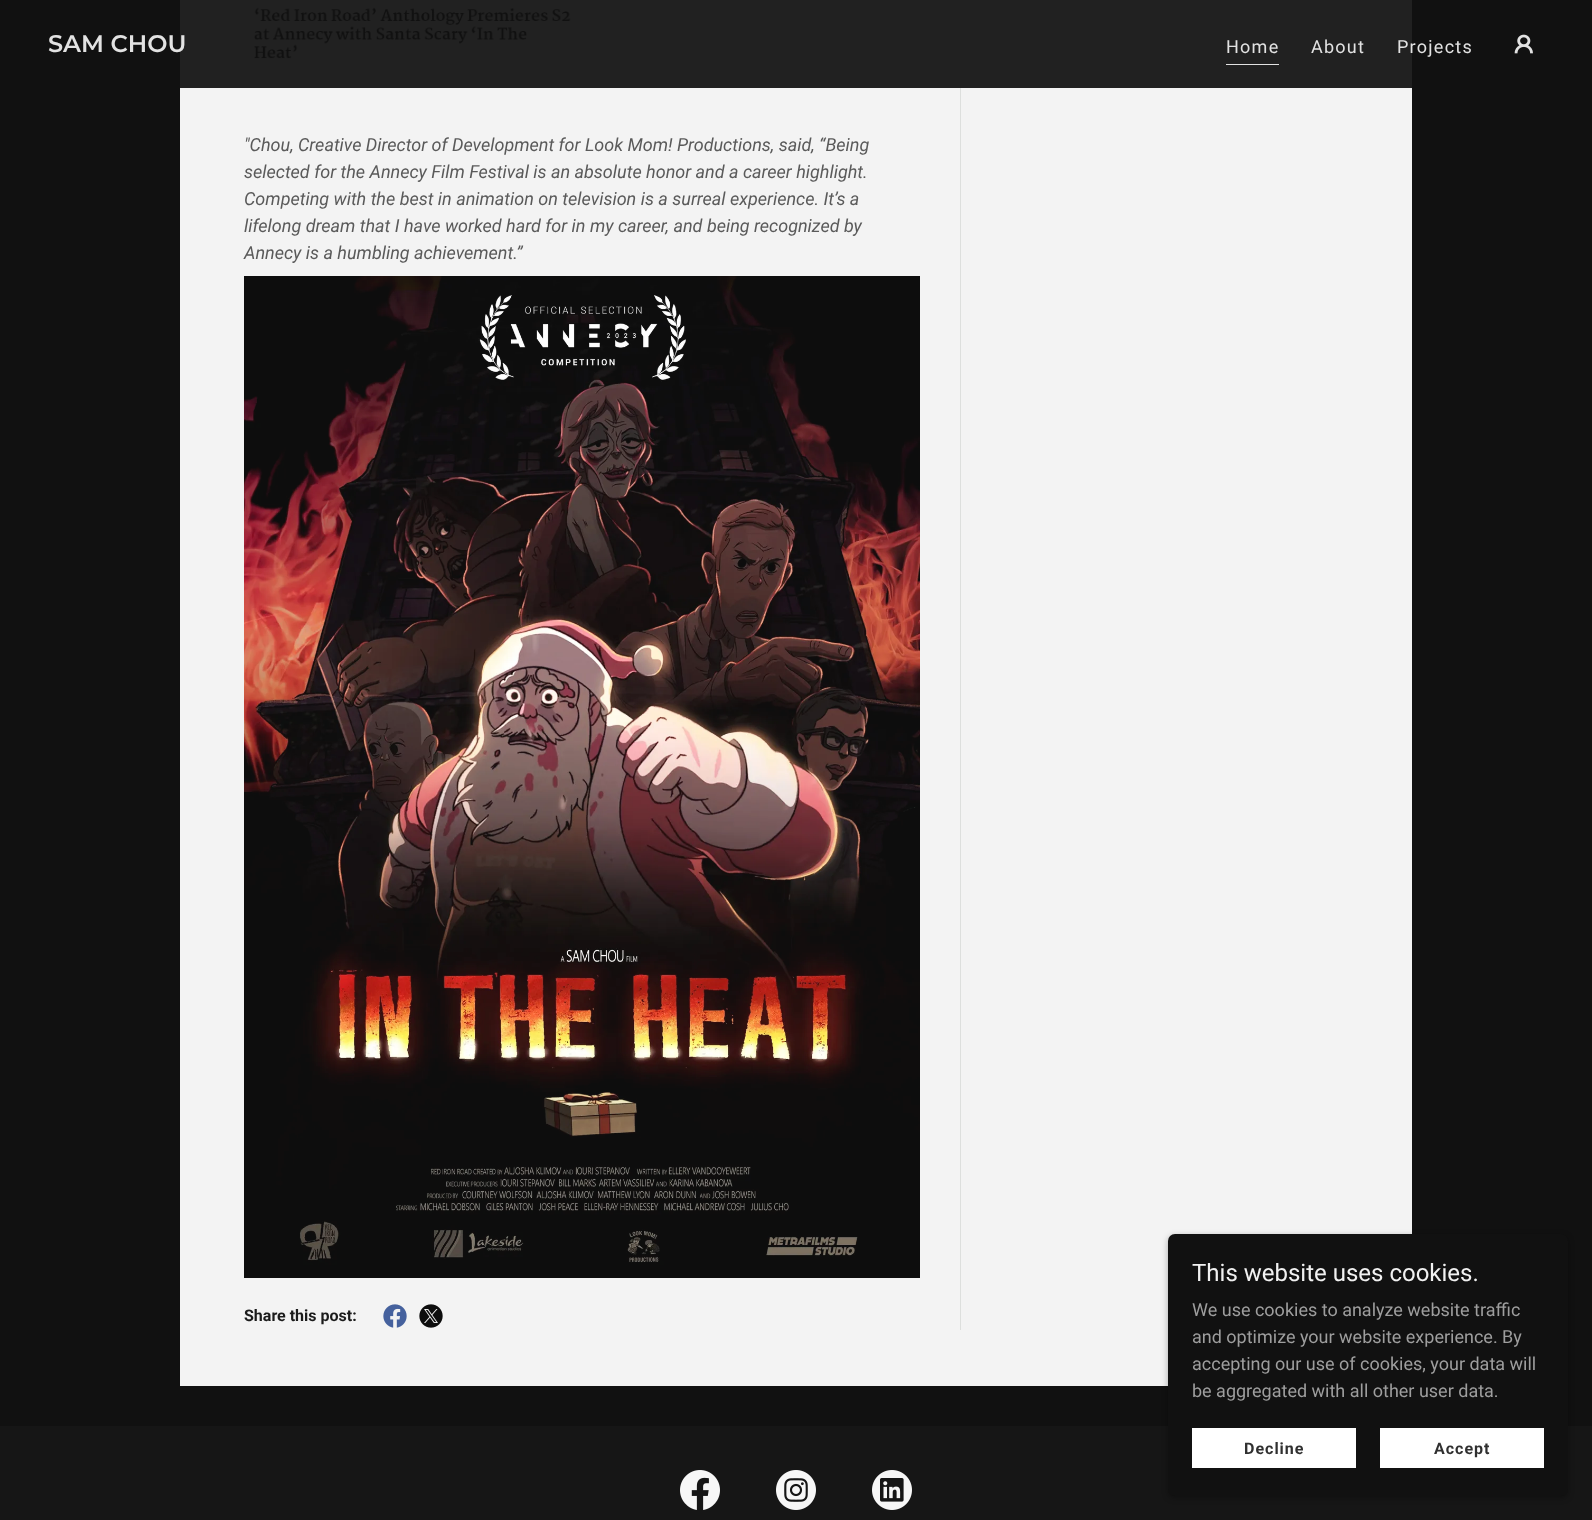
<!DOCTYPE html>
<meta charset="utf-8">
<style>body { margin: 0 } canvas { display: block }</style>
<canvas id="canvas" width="1592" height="1520"></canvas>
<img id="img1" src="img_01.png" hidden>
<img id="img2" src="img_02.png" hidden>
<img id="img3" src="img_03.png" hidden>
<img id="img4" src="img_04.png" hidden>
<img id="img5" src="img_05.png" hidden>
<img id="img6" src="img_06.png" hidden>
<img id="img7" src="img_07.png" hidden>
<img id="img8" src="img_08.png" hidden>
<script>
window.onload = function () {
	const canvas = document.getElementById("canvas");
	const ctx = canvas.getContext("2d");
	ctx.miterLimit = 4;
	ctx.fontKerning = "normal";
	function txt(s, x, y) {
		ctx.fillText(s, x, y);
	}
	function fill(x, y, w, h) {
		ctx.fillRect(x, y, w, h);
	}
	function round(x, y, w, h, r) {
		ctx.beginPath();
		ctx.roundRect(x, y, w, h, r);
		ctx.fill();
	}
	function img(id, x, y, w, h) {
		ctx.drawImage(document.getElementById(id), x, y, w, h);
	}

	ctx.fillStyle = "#111111";
	fill(0, 0, 1592, 1520);
	ctx.fillStyle = "#212121";
	fill(180, 0, 1232, 88);
	ctx.fillStyle = "#E2E2E2";
	fill(1226, 64, 53, 1);
	img("img1", 1514, 34, 19, 20);
	ctx.fillStyle = "#F3F3F3";
	fill(180, 88, 1232, 1298);
	ctx.fillStyle = "#DDDFDD";
	fill(960, 88, 1, 1242);
	img("img2", 244, 0, 338, 68);
	img("img3", 244, 276, 676, 1002);
	img("img4", 383, 1304, 24, 24);
	img("img5", 419, 1304, 24, 24);
	ctx.fillStyle = "#161616";
	fill(0, 1426, 1592, 94);
	ctx.fillStyle = "rgba(0, 0, 0, 0.3)";
	ctx.filter = "blur(3px)";
	ctx.beginPath();
	ctx.roundRect(1168, 1236, 400, 262, 7);
	ctx.fill();
	ctx.filter = "none";
	ctx.fillStyle = "#111111";
	round(1168, 1234, 400, 262, 7);
	ctx.fillStyle = "#FFFFFF";
	fill(1192, 1428, 164, 40);
	fill(1380, 1428, 164, 40);
	img("img6", 680, 1470, 40, 40);
	img("img7", 776, 1470, 40, 40);
	img("img8", 872, 1470, 40, 40);
	ctx.font = "600 24px Montserrat";
	ctx.fillStyle = "#E2E2E2";
	txt("SAM CHOU", 48, 52);
	ctx.letterSpacing = "1.25px";
	ctx.font = "18px Roboto";
	txt("Home", 1226, 53);
	txt("About", 1311, 53);
	txt("Projects", 1397, 53);
	ctx.letterSpacing = "0px";
	ctx.font = "italic 18px Roboto";
	ctx.fillStyle = "#5A5A5A";
	txt("\"Chou, Creative Director of Development for Look Mom! Productions, said, “Being", 244, 151);
	txt("selected for the Annecy Film Festival is an absolute honor and a career highlight.", 244, 178);
	txt("Competing with the best in animation on television is a surreal experience. It’s a", 244, 205);
	txt("lifelong dream that I have worked hard for in my career, and being recognized by", 244, 232);
	txt("Annecy is a humbling achievement.”", 244, 259);
	ctx.font = "bold 16px Roboto";
	ctx.fillStyle = "#1B1B1B";
	txt("Share this post:", 244, 1321);
	ctx.font = "24px Roboto";
	ctx.fillStyle = "#F1F1F1";
	txt("This website uses cookies.", 1192, 1281);
	ctx.font = "18px Roboto";
	ctx.fillStyle = "#9E9E9E";
	txt("We use cookies to analyze website traffic", 1192, 1316);
	txt("and optimize your website experience. By", 1192, 1343);
	txt("accepting our use of cookies, your data will", 1192, 1370);
	txt("be aggregated with all other user data.", 1192, 1397);
	ctx.letterSpacing = "1px";
	ctx.font = "bold 16px Roboto";
	ctx.fillStyle = "#303030";
	txt("Decline", 1244, 1454);
	txt("Accept", 1434, 1454);
};
</script>
